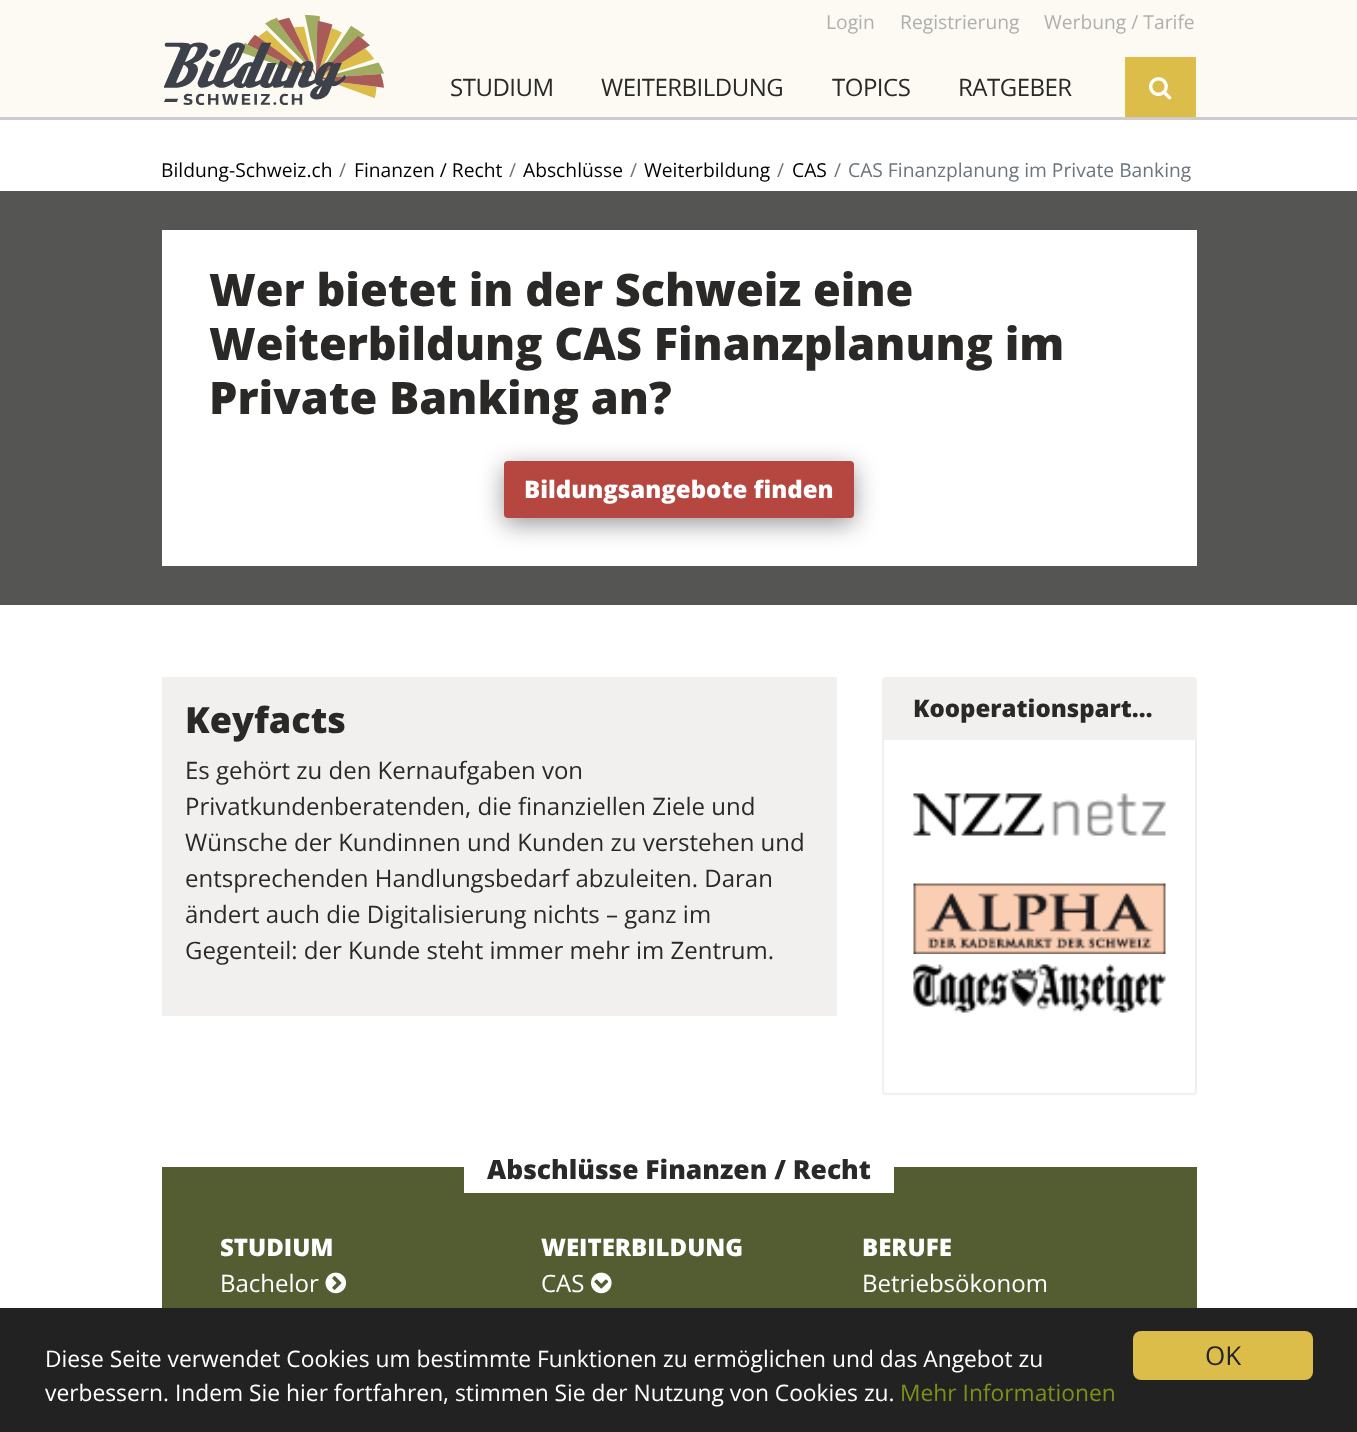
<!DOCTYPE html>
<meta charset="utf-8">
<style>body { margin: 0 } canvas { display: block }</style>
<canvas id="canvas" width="1357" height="1432"></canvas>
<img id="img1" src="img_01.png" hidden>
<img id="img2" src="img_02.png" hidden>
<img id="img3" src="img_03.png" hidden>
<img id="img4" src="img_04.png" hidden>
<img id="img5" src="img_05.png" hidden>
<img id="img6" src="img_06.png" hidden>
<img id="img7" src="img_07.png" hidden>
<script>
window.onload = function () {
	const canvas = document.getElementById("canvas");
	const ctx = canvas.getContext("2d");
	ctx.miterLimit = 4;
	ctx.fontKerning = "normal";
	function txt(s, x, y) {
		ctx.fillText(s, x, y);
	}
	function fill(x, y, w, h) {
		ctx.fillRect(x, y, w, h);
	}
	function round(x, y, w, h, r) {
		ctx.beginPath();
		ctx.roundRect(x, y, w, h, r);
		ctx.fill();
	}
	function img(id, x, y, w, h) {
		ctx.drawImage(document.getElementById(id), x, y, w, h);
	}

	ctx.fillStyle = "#FFFFFF";
	fill(0, 0, 1357, 1432);
	ctx.fillStyle = "#FCFAF3";
	fill(0, 0, 1357, 117);
	ctx.fillStyle = "#CCCCCC";
	fill(0, 117, 1357, 3);
	img("img1", 164, 15, 220, 90);
	ctx.fillStyle = "#DCBD49";
	fill(1125, 57, 71, 60);
	img("img2", 1149, 77, 23, 23);
	ctx.fillStyle = "#555554";
	fill(0, 191, 1357, 414);
	ctx.fillStyle = "#FFFFFF";
	fill(162, 230, 1035, 336);
	ctx.fillStyle = "rgba(0, 0, 0, 0.4)";
	ctx.filter = "blur(12px)";
	ctx.beginPath();
	ctx.roundRect(504, 467, 350, 57, 4);
	ctx.fill();
	ctx.filter = "none";
	ctx.fillStyle = "#B64740";
	ctx.beginPath();
	ctx.roundRect(505, 462, 348, 55, 3);
	ctx.fill();
	ctx.strokeStyle = "#B64740";
	ctx.lineWidth = 2;
	ctx.stroke();
	ctx.fillStyle = "#F1F0EF";
	fill(162, 677, 675, 339);
	ctx.beginPath();
	ctx.roundRect(883, 678, 313, 416, 3);
	ctx.strokeStyle = "#F1F0EF";
	ctx.stroke();
	ctx.beginPath();
	ctx.roundRect(884, 678, 312, 62, [2, 2, 0, 0]);
	ctx.fill();
	img("img3", 913, 793, 253, 43);
	img("img4", 913, 883, 253, 71);
	img("img5", 913, 964, 253, 49);
	ctx.fillStyle = "#545D32";
	fill(162, 1167, 1035, 141);
	ctx.fillStyle = "#FFFFFF";
	fill(464, 1167, 430, 26);
	img("img6", 325, 1272, 22, 22);
	img("img7", 591, 1272, 21, 22);
	ctx.fillStyle = "#222222";
	fill(0, 1308, 1357, 124);
	ctx.fillStyle = "#DCBD49";
	round(1133, 1331, 180, 49, 8);
	ctx.font = "19.25px Open Sans";
	ctx.fillStyle = "#AFAFAF";
	txt("Login", 826, 29);
	txt("Registrierung", 900, 29);
	txt("Werbung / Tarife", 1044, 29);
	ctx.letterSpacing = "-0.5px";
	ctx.font = "24px Open Sans";
	ctx.fillStyle = "#2A2928";
	txt("STUDIUM", 450, 96);
	txt("WEITERBILDUNG", 601, 96);
	txt("TOPICS", 832, 96);
	txt("RATGEBER", 958, 96);
	ctx.letterSpacing = "0px";
	ctx.font = "19.25px Open Sans";
	ctx.fillStyle = "#000000";
	txt("Bildung-Schweiz.ch", 161, 177);
	ctx.fillStyle = "#6C757D";
	txt("/", 339, 177);
	ctx.fillStyle = "#000000";
	txt("Finanzen / Recht", 354, 177);
	ctx.fillStyle = "#6C757D";
	txt("/", 509, 177);
	ctx.fillStyle = "#000000";
	txt("Abschlüsse", 523, 177);
	ctx.fillStyle = "#6C757D";
	txt("/", 630, 177);
	ctx.fillStyle = "#000000";
	txt("Weiterbildung", 644, 177);
	ctx.fillStyle = "#6C757D";
	txt("/", 777, 177);
	ctx.fillStyle = "#000000";
	txt("CAS", 792, 177);
	ctx.fillStyle = "#6C757D";
	txt("/", 834, 177);
	txt("CAS Finanzplanung im Private Banking", 848, 177);
	ctx.font = "800 45px Open Sans";
	ctx.fillStyle = "#2A2928";
	txt("Wer bietet in der Schweiz eine", 209, 306);
	txt("Weiterbildung CAS Finanzplanung im", 209, 360);
	txt("Private Banking an?", 209, 414);
	ctx.font = "800 24px Open Sans";
	ctx.fillStyle = "#FFFFFF";
	txt("Bildungsangebote finden", 524, 498);
	ctx.font = "800 36px Open Sans";
	ctx.fillStyle = "#2A2928";
	txt("Keyfacts", 185, 733);
	ctx.font = "24px Open Sans";
	txt("Es gehört zu den Kernaufgaben von", 185, 779);
	txt("Privatkundenberatenden, die finanziellen Ziele und", 185, 815);
	txt("Wünsche der Kundinnen und Kunden zu verstehen und", 185, 851);
	txt("entsprechenden Handlungsbedarf abzuleiten. Daran", 185, 887);
	txt("ändert auch die Digitalisierung nichts – ganz im", 185, 923);
	txt("Gegenteil: der Kunde steht immer mehr im Zentrum.", 185, 959);
	ctx.font = "800 24px Open Sans";
	txt("Kooperationspart…", 913, 717);
	ctx.font = "800 26.4px Open Sans";
	txt("Abschlüsse Finanzen / Recht", 487, 1179);
	ctx.font = "800 24px Open Sans";
	ctx.fillStyle = "#FFFFFF";
	txt("STUDIUM", 220, 1256);
	ctx.font = "24px Open Sans";
	txt("Bachelor", 220, 1292);
	ctx.font = "800 24px Open Sans";
	txt("WEITERBILDUNG", 541, 1256);
	ctx.font = "24px Open Sans";
	txt("CAS", 541, 1292);
	ctx.font = "800 24px Open Sans";
	txt("BERUFE", 862, 1256);
	ctx.font = "24px Open Sans";
	txt("Betriebsökonom", 862, 1292);
	ctx.font = "22.8px Open Sans";
	txt("Diese Seite verwendet Cookies um bestimmte Funktionen zu ermöglichen und das Angebot zu", 45, 1367);
	txt("verbessern. Indem Sie hier fortfahren, stimmen Sie der Nutzung von Cookies zu.", 45, 1401);
	ctx.fillStyle = "#7A9217";
	txt("Mehr Informationen", 900, 1401);
	ctx.font = "26px Open Sans";
	ctx.fillStyle = "#212529";
	txt("OK", 1205, 1365);
};
</script>
